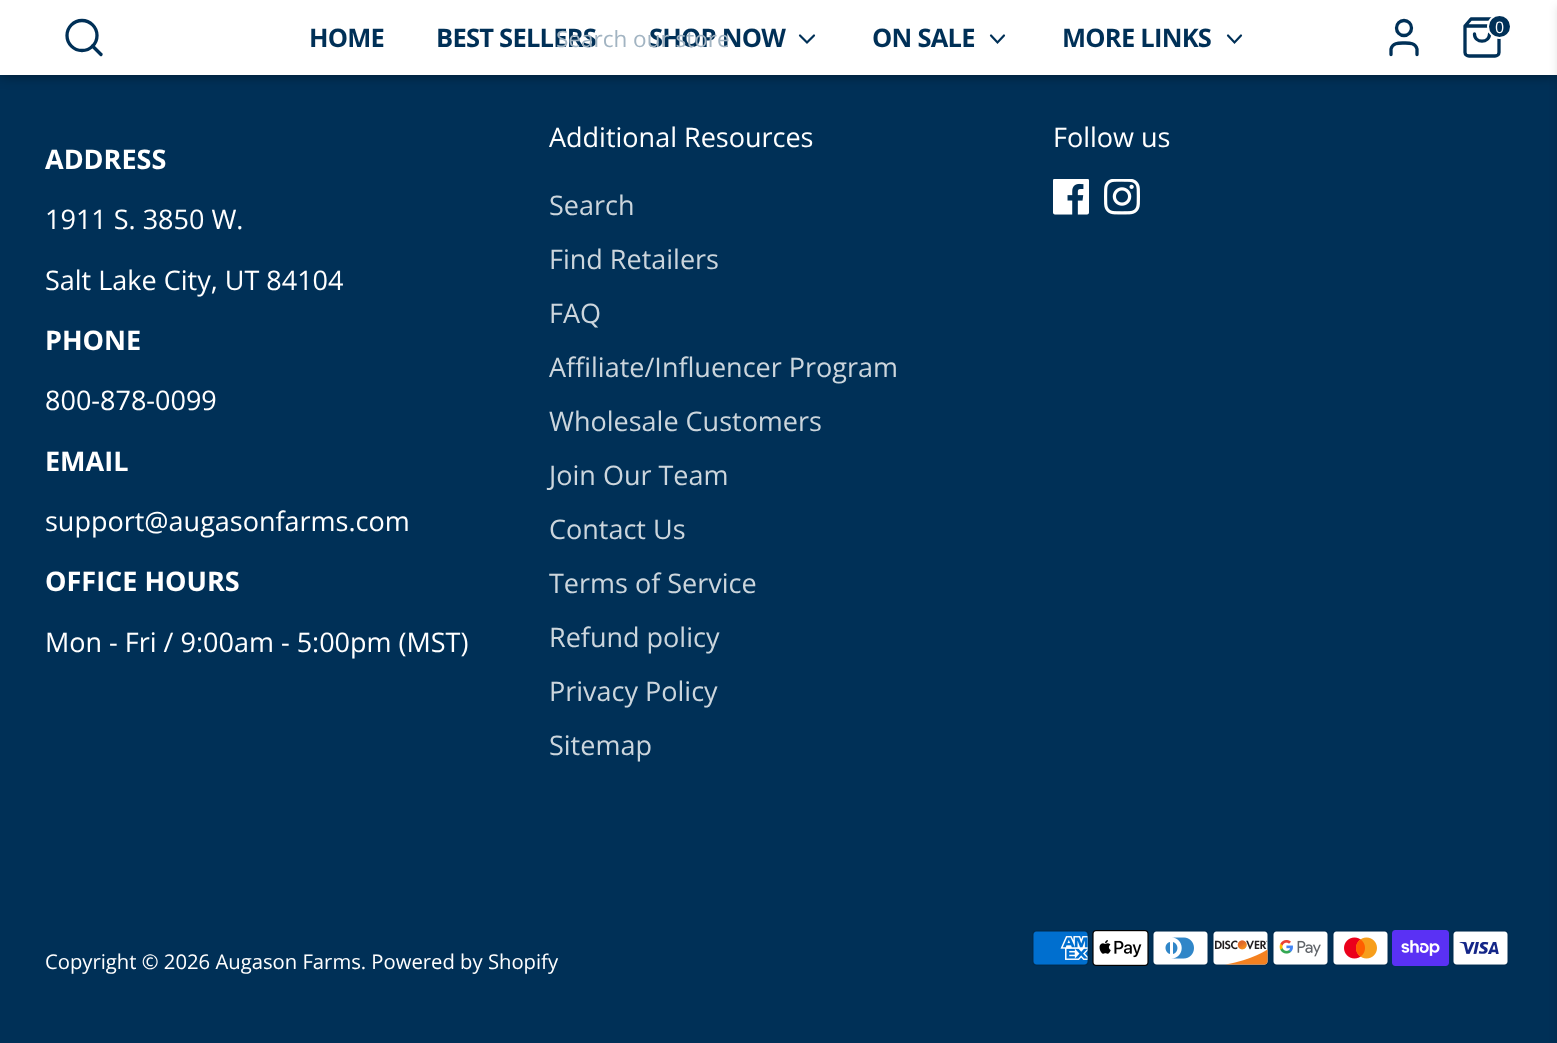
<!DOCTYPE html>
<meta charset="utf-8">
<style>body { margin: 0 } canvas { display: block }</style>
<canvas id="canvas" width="1557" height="1043"></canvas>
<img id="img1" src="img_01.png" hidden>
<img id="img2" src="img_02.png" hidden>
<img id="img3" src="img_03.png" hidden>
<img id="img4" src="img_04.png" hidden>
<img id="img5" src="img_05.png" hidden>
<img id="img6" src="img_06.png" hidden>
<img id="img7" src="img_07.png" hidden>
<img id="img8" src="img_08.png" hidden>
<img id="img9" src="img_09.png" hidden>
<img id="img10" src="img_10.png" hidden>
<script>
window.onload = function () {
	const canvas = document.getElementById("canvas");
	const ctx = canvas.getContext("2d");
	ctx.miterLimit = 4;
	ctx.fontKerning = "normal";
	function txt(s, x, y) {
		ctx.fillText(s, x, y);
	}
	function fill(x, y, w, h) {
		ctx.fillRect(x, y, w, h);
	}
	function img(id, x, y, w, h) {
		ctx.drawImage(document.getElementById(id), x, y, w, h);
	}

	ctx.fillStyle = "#003057";
	fill(0, 0, 1557, 1043);
	ctx.fillStyle = "rgba(0, 0, 0, 0.75)";
	ctx.filter = "blur(7.5px)";
	ctx.beginPath();
	ctx.rect(0, -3, 1557, 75);
	ctx.fill();
	ctx.filter = "none";
	ctx.fillStyle = "#FFFFFF";
	fill(0, 0, 1557, 75);
	ctx.beginPath();
	ctx.arc(82, 35.5, 15, 0, Math.PI * 2);
	ctx.strokeStyle = "#003057";
	ctx.lineWidth = 3.3;
	ctx.stroke();
	ctx.beginPath();
	ctx.moveTo(101, 54.5);
	ctx.lineTo(92.5, 46);
	ctx.lineCap = "round";
	ctx.lineJoin = "round";
	ctx.stroke();
	ctx.beginPath();
	ctx.moveTo(1417, 54.5);
	ctx.lineTo(1417, 49);
	ctx.bezierCurveTo(1415.5, 42.5, 1409, 43, 1404, 43);
	ctx.bezierCurveTo(1399, 43, 1392.5, 42.5, 1391, 49);
	ctx.lineTo(1391, 54.5);
	ctx.stroke();
	ctx.beginPath();
	ctx.arc(1404, 28, 7.5, 0, Math.PI * 2);
	ctx.stroke();
	ctx.beginPath();
	ctx.moveTo(1471, 19);
	ctx.lineTo(1465, 26);
	ctx.lineTo(1465, 52.5);
	ctx.bezierCurveTo(1465, 54.5, 1467, 56, 1469, 56);
	ctx.lineTo(1495, 56);
	ctx.bezierCurveTo(1497, 56, 1499, 54.5, 1499, 52.5);
	ctx.lineTo(1499, 26);
	ctx.lineTo(1493, 19);
	ctx.closePath();
	ctx.moveTo(1465, 26);
	ctx.lineTo(1499, 26);
	ctx.moveTo(1489.5, 34);
	ctx.bezierCurveTo(1489.5, 43.5, 1474.5, 43.5, 1474.5, 34);
	ctx.stroke();
	ctx.fillStyle = "#003057";
	ctx.beginPath();
	ctx.arc(1499.5, 26.5, 11.5, 0, Math.PI * 2);
	ctx.fill();
	ctx.strokeStyle = "#FFFFFF";
	ctx.lineWidth = 2;
	ctx.stroke();
	ctx.beginPath();
	ctx.moveTo(800, 35.5);
	ctx.lineTo(807, 42.5);
	ctx.lineTo(814, 35.5);
	ctx.strokeStyle = "#003057";
	ctx.lineWidth = 2.2;
	ctx.lineJoin = "miter";
	ctx.stroke();
	ctx.beginPath();
	ctx.moveTo(991, 35.5);
	ctx.lineTo(997.5, 42.5);
	ctx.lineTo(1004, 35.5);
	ctx.stroke();
	ctx.beginPath();
	ctx.moveTo(1228, 35.5);
	ctx.lineTo(1234.5, 42.5);
	ctx.lineTo(1241, 35.5);
	ctx.stroke();
	ctx.fillStyle = "rgba(0, 0, 0, 0.1)";
	ctx.filter = "blur(4.5px)";
	ctx.beginPath();
	ctx.rect(1557, 6, 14, 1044);
	ctx.fill();
	ctx.filter = "none";
	img("img1", 1053, 179, 36, 36);
	img("img2", 1104, 179, 36, 36);
	img("img3", 1032, 930, 57, 36);
	img("img4", 1092, 930, 57, 36);
	img("img5", 1152, 930, 57, 36);
	img("img6", 1212, 930, 57, 36);
	img("img7", 1272, 930, 57, 36);
	img("img8", 1332, 930, 57, 36);
	img("img9", 1392, 930, 57, 36);
	img("img10", 1452, 930, 57, 36);
	ctx.font = "16px Open Sans";
	ctx.fillStyle = "#FFFFFF";
	txt("0", 1495, 33);
	ctx.letterSpacing = "-0.75px";
	ctx.font = "bold 25.5px Open Sans";
	ctx.fillStyle = "#003057";
	txt("HOME", 309, 47);
	txt("BEST SELLERS", 436, 47);
	txt("SHOP NOW", 649, 47);
	ctx.letterSpacing = "0px";
	ctx.font = "22.5px Open Sans";
	ctx.fillStyle = "#A2B4C2";
	txt("Search our store", 556, 47);
	ctx.letterSpacing = "-0.75px";
	ctx.font = "bold 25.5px Open Sans";
	ctx.fillStyle = "#003057";
	txt("ON SALE", 872, 47);
	txt("MORE LINKS", 1062, 47);
	ctx.letterSpacing = "0px";
	ctx.font = "27px Open Sans";
	ctx.fillStyle = "#FFFFFF";
	txt("Additional Resources", 549, 147);
	ctx.fillStyle = "#CCD6DD";
	txt("Search", 549, 215);
	txt("Find Retailers", 549, 269);
	txt("FAQ", 549, 323);
	txt("Affiliate/Influencer Program", 549, 377);
	txt("Wholesale Customers", 549, 431);
	txt("Join Our Team", 549, 485);
	txt("Contact Us", 549, 539);
	txt("Terms of Service", 549, 593);
	txt("Refund policy", 549, 647);
	txt("Privacy Policy", 549, 701);
	txt("Sitemap", 549, 755);
	ctx.fillStyle = "#FFFFFF";
	txt("Follow us", 1053, 147);
	ctx.font = "bold 27px Open Sans";
	txt("ADDRESS", 45, 169);
	ctx.font = "27px Open Sans";
	txt("1911 S. 3850 W.", 45, 229);
	txt("Salt Lake City, UT 84104", 45, 290);
	ctx.font = "bold 27px Open Sans";
	txt("PHONE", 45, 350);
	ctx.font = "27px Open Sans";
	txt("800-878-0099", 45, 410);
	ctx.font = "bold 27px Open Sans";
	txt("EMAIL", 45, 471);
	ctx.font = "27px Open Sans";
	txt("support@augasonfarms.com", 45, 531);
	ctx.font = "bold 27px Open Sans";
	txt("OFFICE HOURS", 45, 591);
	ctx.font = "27px Open Sans";
	txt("Mon - Fri / 9:00am - 5:00pm (MST)", 45, 652);
	ctx.font = "20.25px Open Sans";
	txt("Copyright © 2026 Augason Farms. Powered by Shopify", 45, 969);
};
</script>
